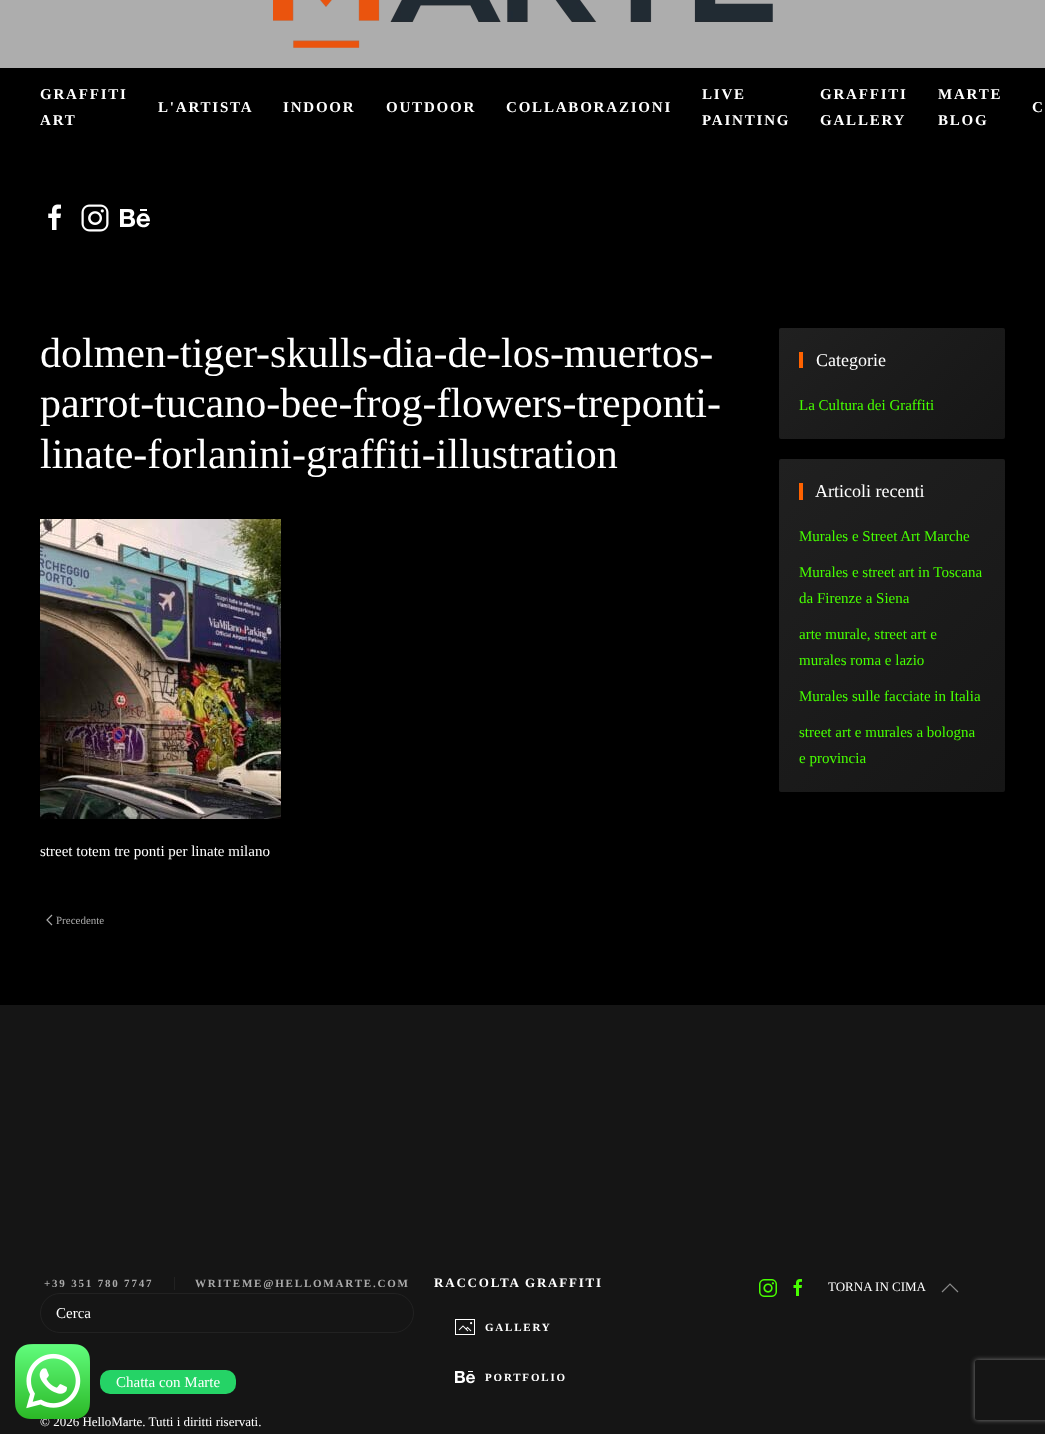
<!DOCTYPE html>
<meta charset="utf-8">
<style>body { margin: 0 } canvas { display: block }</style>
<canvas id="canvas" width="1045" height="1434"></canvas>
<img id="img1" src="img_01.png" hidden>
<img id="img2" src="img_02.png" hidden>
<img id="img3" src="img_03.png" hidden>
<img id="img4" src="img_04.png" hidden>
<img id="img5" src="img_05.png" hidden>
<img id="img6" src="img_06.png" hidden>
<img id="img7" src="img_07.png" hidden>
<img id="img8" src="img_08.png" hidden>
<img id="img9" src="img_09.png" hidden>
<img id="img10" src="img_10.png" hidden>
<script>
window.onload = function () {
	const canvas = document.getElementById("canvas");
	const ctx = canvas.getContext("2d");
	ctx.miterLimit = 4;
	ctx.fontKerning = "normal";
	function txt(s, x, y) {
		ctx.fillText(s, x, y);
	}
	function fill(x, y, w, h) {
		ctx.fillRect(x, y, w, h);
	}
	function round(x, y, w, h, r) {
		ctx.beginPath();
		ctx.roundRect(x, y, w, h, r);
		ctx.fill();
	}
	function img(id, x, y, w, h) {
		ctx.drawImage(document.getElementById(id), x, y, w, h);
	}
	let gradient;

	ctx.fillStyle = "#000000";
	fill(0, 0, 1045, 1434);
	ctx.fillStyle = "#ADADAD";
	fill(0, 0, 1045, 68);
	img("img1", 273, 0, 500, 48);
	img("img2", 48, 204, 13, 26);
	img("img3", 81, 204, 28, 28);
	img("img4", 120, 209, 30, 19);
	img("img5", 40, 519, 241, 300);
	ctx.beginPath();
	ctx.moveTo(52, 915);
	ctx.lineTo(47, 920);
	ctx.lineTo(52, 925);
	ctx.strokeStyle = "#AAAAAA";
	ctx.lineWidth = 1.2;
	ctx.stroke();
	gradient = ctx.createLinearGradient(808, 299, 976, 468);
	gradient.addColorStop(0, "#202020");
	gradient.addColorStop(1, "#161616");
	ctx.fillStyle = gradient;
	round(779, 328, 226, 111, 2);
	ctx.fillStyle = "#FF6200";
	fill(799, 352, 4, 16);
	gradient = ctx.createLinearGradient(752, 486, 1032, 765);
	gradient.addColorStop(0, "#202020");
	gradient.addColorStop(1, "#161616");
	ctx.fillStyle = gradient;
	round(779, 459, 226, 333, 2);
	ctx.fillStyle = "#FF6200";
	fill(799, 483, 4, 17);
	ctx.fillStyle = "#151515";
	fill(0, 1005, 1045, 429);
	ctx.fillStyle = "#222222";
	fill(174, 1277, 1, 13);
	ctx.beginPath();
	ctx.roundRect(40.5, 1293.5, 373, 39, 19.5);
	ctx.strokeStyle = "#222222";
	ctx.lineWidth = 1;
	ctx.stroke();
	img("img6", 455, 1319, 20, 16);
	img("img7", 455, 1371, 20, 13);
	img("img8", 759, 1279, 18, 18);
	img("img9", 793, 1279, 9, 17);
	ctx.beginPath();
	ctx.moveTo(942, 1292);
	ctx.lineTo(950, 1284);
	ctx.lineTo(958, 1292);
	ctx.strokeStyle = "#8A8A8A";
	ctx.lineWidth = 1.2;
	ctx.stroke();
	ctx.fillStyle = "#25D366";
	round(100, 1370, 136, 24, 10);
	ctx.save();
	ctx.beginPath();
	ctx.moveTo(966, 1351);
	ctx.lineTo(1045, 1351);
	ctx.lineTo(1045, 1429);
	ctx.lineTo(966, 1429);
	ctx.closePath();
	ctx.moveTo(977, 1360);
	ctx.lineTo(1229, 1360);
	ctx.bezierCurveTo(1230, 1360, 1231, 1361, 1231, 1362);
	ctx.lineTo(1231, 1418);
	ctx.bezierCurveTo(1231, 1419, 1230, 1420, 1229, 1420);
	ctx.lineTo(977, 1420);
	ctx.bezierCurveTo(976, 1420, 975, 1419, 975, 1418);
	ctx.lineTo(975, 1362);
	ctx.bezierCurveTo(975, 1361, 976, 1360, 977, 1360);
	ctx.closePath();
	ctx.clip("evenodd");
	ctx.fillStyle = "#808080";
	ctx.filter = "blur(2.5px)";
	ctx.beginPath();
	ctx.roundRect(975, 1360, 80, 60, 2);
	ctx.fill();
	ctx.filter = "none";
	ctx.restore();
	ctx.letterSpacing = "1.8px";
	ctx.font = "bold 15px Liberation Serif";
	ctx.fillStyle = "#FFFFFF";
	txt("GRAFFITI", 40, 99);
	txt("ART", 40, 125);
	txt("L'ARTISTA", 158, 112);
	txt("INDOOR", 283, 112);
	txt("OUTDOOR", 386, 112);
	txt("COLLABORAZIONI", 506, 112);
	txt("LIVE", 702, 99);
	txt("PAINTING", 702, 125);
	txt("GRAFFITI", 820, 99);
	txt("GALLERY", 820, 125);
	txt("MARTE", 938, 99);
	txt("BLOG", 938, 125);
	txt("C", 1032, 112);
	ctx.letterSpacing = "0px";
	ctx.font = "42px Liberation Serif";
	txt("dolmen-tiger-skulls-dia-de-los-muertos-", 40, 367);
	txt("parrot-tucano-bee-frog-flowers-treponti-", 40, 417);
	txt("linate-forlanini-graffiti-illustration", 40, 468);
	ctx.font = "15px Liberation Serif";
	txt("street totem tre ponti per linate milano", 40, 856);
	ctx.font = "11px Liberation Serif";
	ctx.fillStyle = "#AAAAAA";
	txt("Precedente", 56, 924);
	ctx.font = "18px Liberation Serif";
	ctx.fillStyle = "#FFFFFF";
	txt("Categorie", 816, 366);
	ctx.font = "15px Liberation Serif";
	ctx.fillStyle = "#47FF00";
	txt("La Cultura dei Graffiti", 799, 410);
	ctx.font = "18px Liberation Serif";
	ctx.fillStyle = "#FFFFFF";
	txt("Articoli recenti", 815, 497);
	ctx.font = "15px Liberation Serif";
	ctx.fillStyle = "#47FF00";
	txt("Murales e Street Art Marche", 799, 541);
	txt("Murales e street art in Toscana", 799, 577);
	txt("da Firenze a Siena", 799, 603);
	txt("arte murale, street art e", 799, 639);
	txt("murales roma e lazio", 799, 665);
	txt("Murales sulle facciate in Italia", 799, 701);
	txt("street art e murales a bologna", 799, 737);
	txt("e provincia", 799, 763);
	ctx.letterSpacing = "1.8px";
	ctx.font = "bold 11px Liberation Serif";
	ctx.fillStyle = "#AAAAAA";
	txt("+39 351 780 7747", 44, 1287);
	txt("WRITEME@HELLOMARTE.COM", 195, 1287);
	ctx.letterSpacing = "0px";
	ctx.font = "15px Liberation Serif";
	ctx.fillStyle = "#FFFFFF";
	txt("Cerca", 56, 1318);
	ctx.letterSpacing = "1.8px";
	ctx.font = "bold 13px Liberation Serif";
	txt("RACCOLTA GRAFFITI", 434, 1287);
	ctx.font = "bold 11px Liberation Serif";
	txt("GALLERY", 485, 1331);
	txt("PORTFOLIO", 485, 1381);
	ctx.letterSpacing = "0px";
	ctx.font = "13px Liberation Serif";
	txt("TORNA IN CIMA", 828, 1291);
	txt("© 2026 HelloMarte. Tutti i diritti riservati.", 40, 1426);
	img("img10", 15, 1344, 75, 75);
	ctx.font = "15px Liberation Serif";
	txt("Chatta con Marte", 116, 1387);
};
</script>
